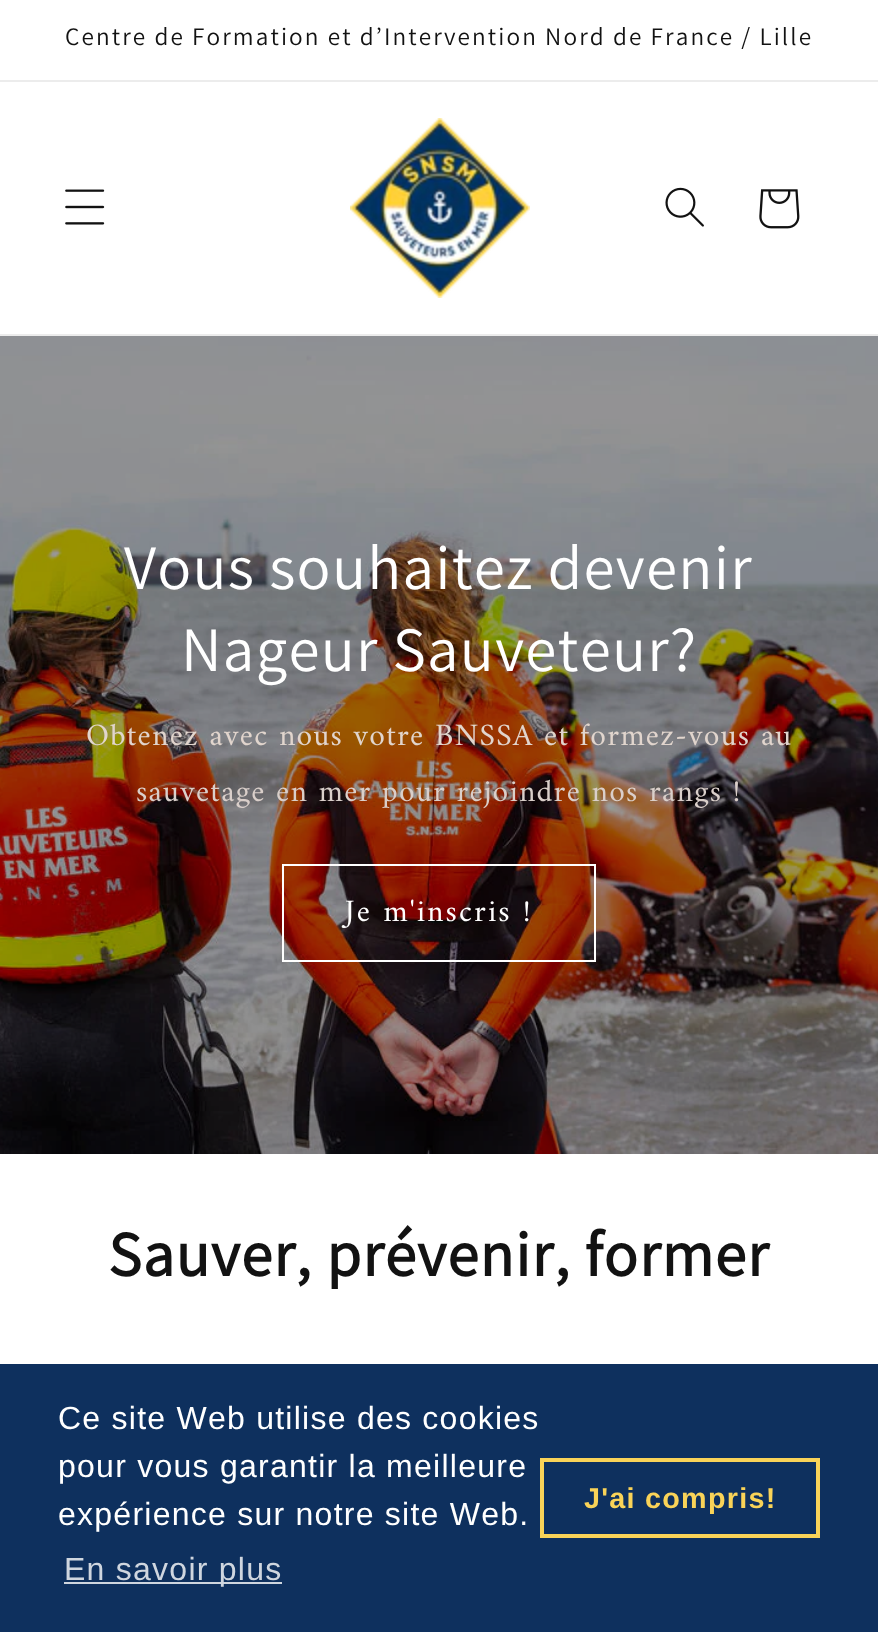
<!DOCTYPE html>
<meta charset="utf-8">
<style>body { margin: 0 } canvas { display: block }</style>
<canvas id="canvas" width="878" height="1632"></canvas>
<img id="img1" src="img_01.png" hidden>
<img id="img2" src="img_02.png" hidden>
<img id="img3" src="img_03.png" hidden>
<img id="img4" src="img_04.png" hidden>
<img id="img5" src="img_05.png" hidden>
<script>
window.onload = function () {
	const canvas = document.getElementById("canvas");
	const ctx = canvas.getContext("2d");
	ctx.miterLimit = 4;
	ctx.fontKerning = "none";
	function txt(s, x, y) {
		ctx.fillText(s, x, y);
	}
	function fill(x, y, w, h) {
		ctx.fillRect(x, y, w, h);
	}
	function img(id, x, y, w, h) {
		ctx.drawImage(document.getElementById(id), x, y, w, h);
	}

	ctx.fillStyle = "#FFFFFF";
	fill(0, 0, 878, 1632);
	ctx.fillStyle = "#ECECEC";
	fill(0, 80, 878, 2);
	fill(0, 334, 878, 2);
	img("img1", 65, 189, 40, 36);
	img("img2", 350, 118, 180, 180);
	img("img3", 665, 187, 39, 40);
	img("img4", 759, 189, 41, 40);
	img("img5", 0, 336, 878, 818);
	ctx.strokeStyle = "#FFFFFF";
	ctx.lineWidth = 2;
	ctx.strokeRect(283, 865, 312, 96);
	ctx.fillStyle = "#0E305E";
	fill(0, 1364, 878, 268);
	ctx.fillStyle = "#CFD6DF";
	fill(64, 1582, 218, 2);
	ctx.strokeStyle = "#F9D358";
	ctx.lineWidth = 4;
	ctx.strokeRect(542, 1460, 276, 76);
	ctx.letterSpacing = "2.1px";
	ctx.font = "25.2px Assistant";
	ctx.fillStyle = "#121212";
	txt("Centre de Formation et d’Intervention Nord de France / Lille", 65, 45);
	ctx.letterSpacing = "1.25px";
	ctx.font = "63px Assistant";
	ctx.fillStyle = "#FFFFFF";
	txt("Vous souhaitez devenir", 124, 589);
	txt("Nageur Sauveteur?", 181, 671);
	ctx.font = "31.5px Amiri";
	ctx.fillStyle = "#E1D5CD";
	txt("Obtenez avec nous votre BNSSA et formez-vous au", 86, 745);
	ctx.fillStyle = "#DACFCA";
	txt("sauvetage en mer pour rejoindre nos rangs !", 136, 801);
	ctx.letterSpacing = "2.1px";
	ctx.fillStyle = "#FFFFFF";
	txt("Je m'inscris !", 345, 921);
	ctx.letterSpacing = "1.25px";
	ctx.font = "bold 63px Assistant";
	ctx.fillStyle = "#121212";
	txt("Sauver, prévenir, former", 108, 1276);
	ctx.font = "32px Liberation Sans";
	ctx.fillStyle = "#FFFFFF";
	txt("Ce site Web utilise des cookies", 58, 1429);
	txt("pour vous garantir la meilleure", 58, 1477);
	txt("expérience sur notre site Web.", 58, 1525);
	ctx.fillStyle = "#CFD6DF";
	txt("En savoir plus", 64, 1580);
	ctx.font = "bold 28.75px Liberation Sans";
	ctx.fillStyle = "#F9D358";
	txt("J'ai compris!", 584, 1508);
};
</script>
